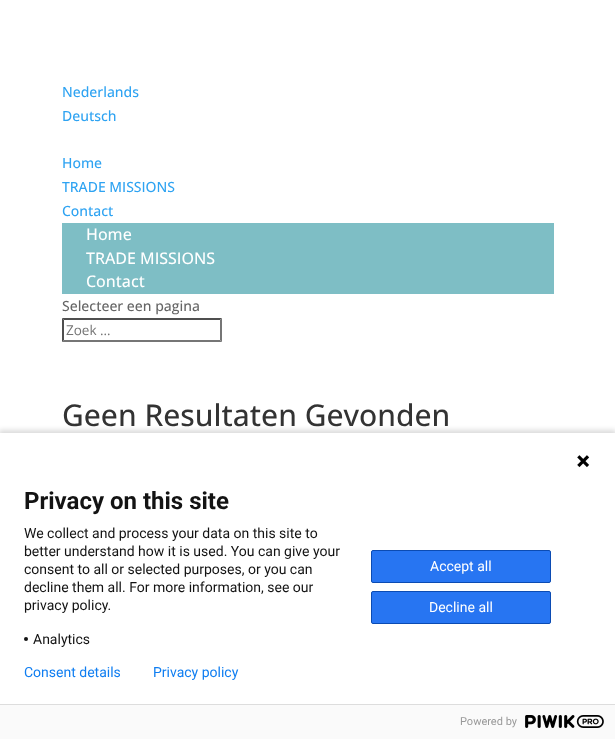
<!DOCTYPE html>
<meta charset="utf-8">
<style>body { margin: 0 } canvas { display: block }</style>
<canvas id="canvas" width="615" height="739"></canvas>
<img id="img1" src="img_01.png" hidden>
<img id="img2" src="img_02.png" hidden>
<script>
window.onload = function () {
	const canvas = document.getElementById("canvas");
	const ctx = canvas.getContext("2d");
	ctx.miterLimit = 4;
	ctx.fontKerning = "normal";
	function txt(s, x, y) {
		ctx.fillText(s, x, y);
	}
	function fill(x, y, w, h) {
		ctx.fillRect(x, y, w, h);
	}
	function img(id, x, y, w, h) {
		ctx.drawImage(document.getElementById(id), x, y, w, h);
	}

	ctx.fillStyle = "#FFFFFF";
	fill(0, 0, 615, 739);
	ctx.fillStyle = "#7EBEC5";
	fill(62, 223, 492, 71);
	ctx.fillStyle = "#4F4F4F";
	ctx.beginPath();
	ctx.moveTo(62, 318);
	ctx.lineTo(222, 318);
	ctx.lineTo(220, 320);
	ctx.lineTo(64, 320);
	ctx.closePath();
	ctx.fill();
	ctx.fillStyle = "#767676";
	ctx.beginPath();
	ctx.moveTo(222, 318);
	ctx.lineTo(222, 342);
	ctx.lineTo(220, 340);
	ctx.lineTo(220, 320);
	ctx.closePath();
	ctx.fill();
	ctx.beginPath();
	ctx.moveTo(222, 342);
	ctx.lineTo(62, 342);
	ctx.lineTo(64, 340);
	ctx.lineTo(220, 340);
	ctx.closePath();
	ctx.fill();
	ctx.fillStyle = "#4F4F4F";
	ctx.beginPath();
	ctx.moveTo(62, 342);
	ctx.lineTo(62, 318);
	ctx.lineTo(64, 320);
	ctx.lineTo(64, 340);
	ctx.closePath();
	ctx.fill();
	ctx.fillStyle = "rgba(0, 0, 0, 0.14)";
	ctx.filter = "blur(2.5px)";
	ctx.beginPath();
	ctx.rect(-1, 430, 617, 308);
	ctx.fill();
	ctx.filter = "none";
	ctx.fillStyle = "#FFFFFF";
	fill(0, 433, 615, 271);
	img("img1", 577, 455, 13, 13);
	ctx.fillStyle = "#131313";
	ctx.beginPath();
	ctx.arc(26, 639, 2, 0, Math.PI * 2);
	ctx.fill();
	ctx.fillStyle = "#2775F2";
	ctx.beginPath();
	ctx.roundRect(371.5, 550.5, 179, 32, 1.5);
	ctx.fill();
	ctx.strokeStyle = "#0B4BB3";
	ctx.stroke();
	ctx.beginPath();
	ctx.roundRect(371.5, 591.5, 179, 32, 1.5);
	ctx.fill();
	ctx.stroke();
	ctx.fillStyle = "#FAFAFA";
	fill(0, 705, 615, 34);
	ctx.fillStyle = "#DDDDDD";
	fill(0, 704, 615, 1);
	img("img2", 525, 715, 79, 13);
	ctx.font = "500 14px Open Sans";
	ctx.fillStyle = "#2EA3F2";
	txt("Nederlands", 62, 97);
	txt("Deutsch", 62, 121);
	txt("Home", 62, 168);
	txt("TRADE MISSIONS", 62, 192);
	txt("Contact", 62, 216);
	ctx.font = "500 16px Open Sans";
	ctx.fillStyle = "#FFFFFF";
	txt("Home", 86, 240);
	txt("TRADE MISSIONS", 86, 264);
	txt("Contact", 86, 287);
	ctx.font = "500 14px Open Sans";
	ctx.fillStyle = "#666666";
	txt("Selecteer een pagina", 62, 311);
	ctx.font = "13.5px Open Sans";
	ctx.fillStyle = "#757575";
	txt("Zoek …", 66, 335);
	ctx.font = "500 30px Open Sans";
	ctx.fillStyle = "#333333";
	txt("Geen Resultaten Gevonden", 62, 426);
	ctx.font = "bold 24px Roboto";
	ctx.fillStyle = "#131313";
	txt("Privacy on this site", 24, 509);
	ctx.font = "14px Roboto";
	txt("We collect and process your data on this site to", 24, 538);
	txt("better understand how it is used. You can give your", 24, 556);
	txt("consent to all or selected purposes, or you can", 24, 574);
	txt("decline them all. For more information, see our", 24, 592);
	txt("privacy policy.", 24, 610);
	txt("Analytics", 33, 644);
	ctx.fillStyle = "#FFFFFF";
	txt("Accept all", 430, 571);
	txt("Decline all", 429, 612);
	ctx.fillStyle = "#107EF1";
	txt("Consent details", 24, 677);
	txt("Privacy policy", 153, 677);
	ctx.font = "11px Roboto";
	ctx.fillStyle = "#999999";
	txt("Powered by", 460, 725);
};
</script>
